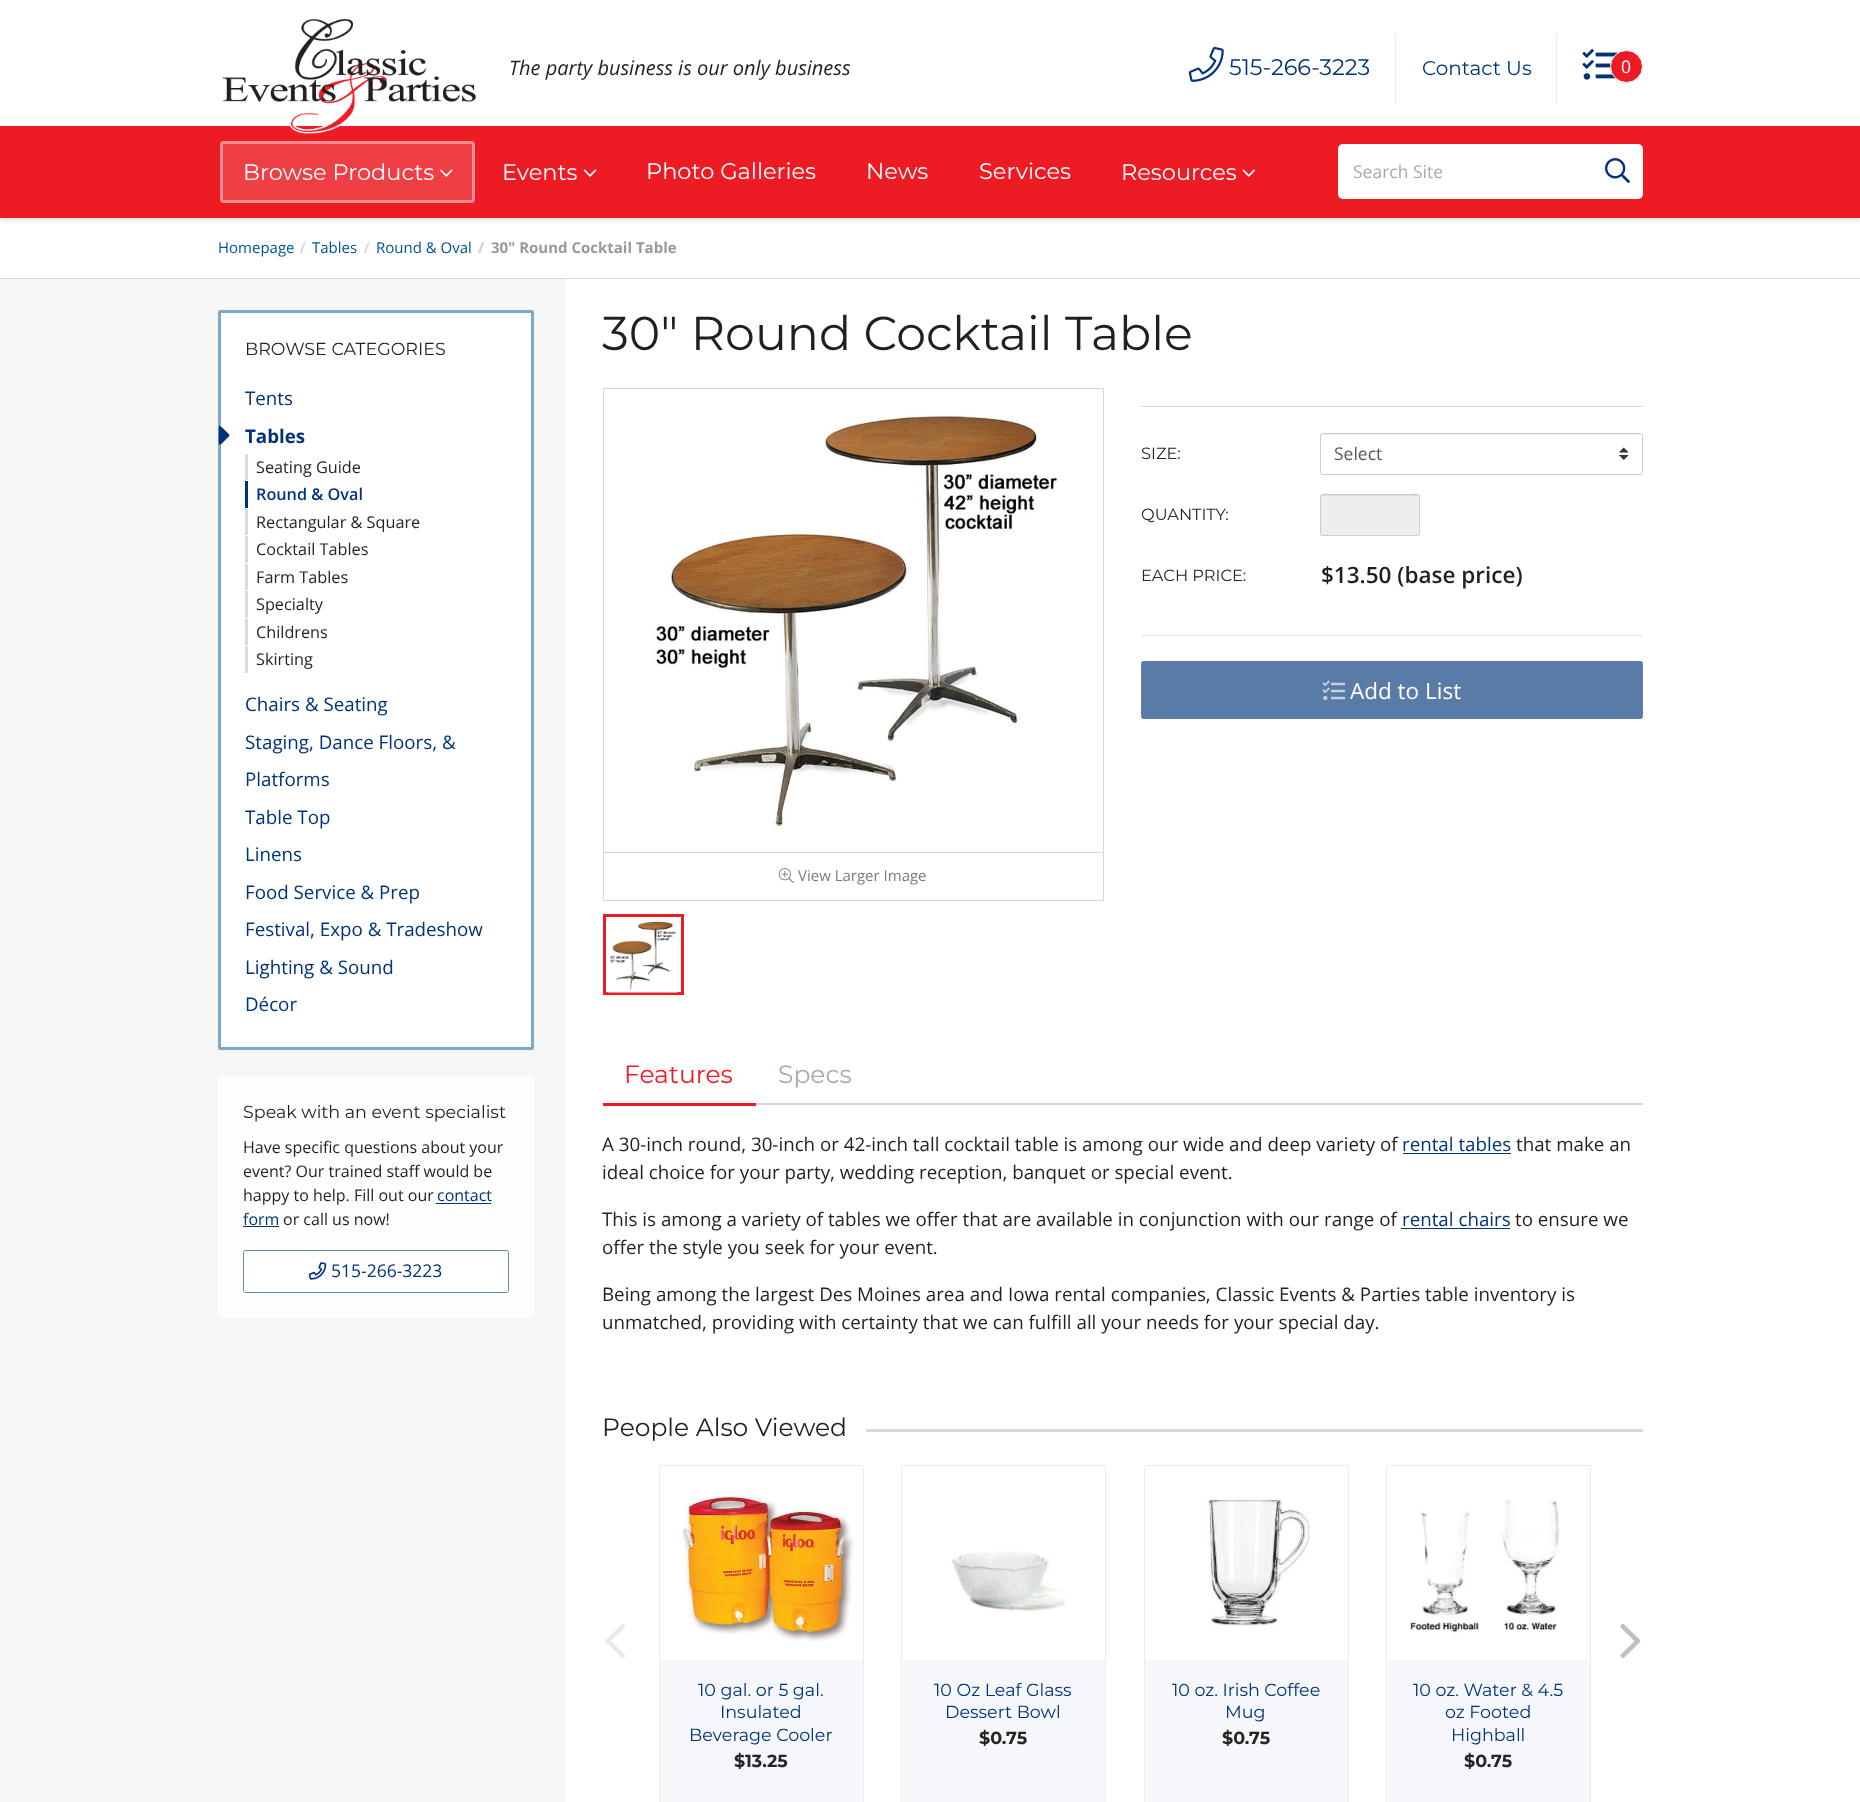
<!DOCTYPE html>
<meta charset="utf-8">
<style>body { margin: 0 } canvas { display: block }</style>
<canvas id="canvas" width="1860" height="1802"></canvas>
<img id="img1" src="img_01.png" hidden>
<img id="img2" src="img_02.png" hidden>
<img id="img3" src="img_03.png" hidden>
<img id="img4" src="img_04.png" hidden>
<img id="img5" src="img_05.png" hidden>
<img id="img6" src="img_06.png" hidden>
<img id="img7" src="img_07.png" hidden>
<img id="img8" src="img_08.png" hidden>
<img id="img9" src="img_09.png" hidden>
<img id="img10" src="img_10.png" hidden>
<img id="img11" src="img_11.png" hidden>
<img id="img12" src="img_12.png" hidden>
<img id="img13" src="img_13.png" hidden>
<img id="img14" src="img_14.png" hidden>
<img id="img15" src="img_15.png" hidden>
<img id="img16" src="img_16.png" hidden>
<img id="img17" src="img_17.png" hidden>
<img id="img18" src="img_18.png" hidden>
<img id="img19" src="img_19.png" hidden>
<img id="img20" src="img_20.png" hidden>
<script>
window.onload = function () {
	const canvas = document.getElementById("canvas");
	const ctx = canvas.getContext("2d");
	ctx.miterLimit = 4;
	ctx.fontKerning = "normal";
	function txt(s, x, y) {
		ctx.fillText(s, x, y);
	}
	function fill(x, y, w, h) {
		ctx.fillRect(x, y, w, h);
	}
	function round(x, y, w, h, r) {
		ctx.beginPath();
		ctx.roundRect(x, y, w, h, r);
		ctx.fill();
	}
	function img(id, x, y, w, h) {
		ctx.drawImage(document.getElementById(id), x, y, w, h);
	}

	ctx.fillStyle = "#FFFFFF";
	fill(0, 0, 1860, 1802);
	ctx.fillStyle = "rgba(0, 0, 0, 0.1)";
	ctx.filter = "blur(2px)";
	ctx.beginPath();
	ctx.rect(0, 130, 1860, 91);
	ctx.fill();
	ctx.filter = "none";
	ctx.fillStyle = "#ED1C24";
	fill(0, 126, 1860, 92);
	img("img1", 222, 19, 254, 115);
	ctx.fillStyle = "#E8E8E8";
	fill(1395, 34, 1, 69);
	img("img2", 1188, 46, 36, 36);
	fill(1556, 34, 1, 69);
	img("img3", 1582, 49, 36, 31);
	ctx.fillStyle = "#ED1C24";
	ctx.beginPath();
	ctx.arc(1626.5, 66.5, 16, 0, Math.PI * 2);
	ctx.fill();
	ctx.strokeStyle = "#FFFFFF";
	ctx.stroke();
	ctx.fillStyle = "#F03E45";
	round(220, 141, 255, 62, 4);
	ctx.beginPath();
	ctx.roundRect(221.5, 142.5, 252, 59, 2.5);
	ctx.strokeStyle = "rgba(255, 255, 255, 0.41)";
	ctx.lineWidth = 3;
	ctx.stroke();
	img("img4", 440, 169, 13, 8);
	img("img5", 583, 169, 14, 8);
	img("img6", 1242, 169, 13, 8);
	ctx.fillStyle = "#FFFFFF";
	round(1338, 144, 305, 55, 5);
	img("img7", 1605, 158, 25, 26);
	ctx.fillStyle = "#DBDBDB";
	fill(0, 278, 1860, 1);
	ctx.fillStyle = "#F6F7F5";
	fill(0, 279, 565, 1523);
	ctx.fillStyle = "#FFFFFF";
	round(218, 310, 316, 740, 2.5);
	ctx.beginPath();
	ctx.roundRect(219.5, 311.5, 313, 737, 1);
	ctx.strokeStyle = "rgba(0, 83, 149, 0.5)";
	ctx.stroke();
	img("img8", 218, 425, 12, 20);
	ctx.fillStyle = "#DBDBDB";
	fill(245, 454, 3, 26);
	ctx.fillStyle = "#013378";
	fill(245, 481, 3, 27);
	ctx.fillStyle = "#DBDBDB";
	fill(245, 509, 3, 26);
	fill(245, 536, 3, 27);
	fill(245, 564, 3, 26);
	fill(245, 591, 3, 27);
	fill(245, 619, 3, 26);
	fill(245, 646, 3, 27);
	ctx.fillStyle = "#FCFDFC";
	round(218, 1075, 316, 243, 5);
	ctx.fillStyle = "#013378";
	fill(436, 1203, 55, 1);
	fill(243, 1226, 36, 1);
	ctx.fillStyle = "#FFFFFF";
	ctx.beginPath();
	ctx.roundRect(243.5, 1250.5, 265, 42, 2);
	ctx.fill();
	ctx.strokeStyle = "#668BAD";
	ctx.lineWidth = 1;
	ctx.stroke();
	img("img9", 308, 1262, 19, 18);
	ctx.fillStyle = "#D7D9D5";
	fill(1141, 406, 502, 1);
	img("img10", 1618, 447, 11, 13);
	ctx.fillStyle = "#ECECEC";
	ctx.beginPath();
	ctx.moveTo(1322, 435);
	ctx.lineTo(1640, 435);
	ctx.lineTo(1641, 436);
	ctx.bezierCurveTo(1641, 435, 1641, 434, 1640, 434);
	ctx.lineTo(1322, 434);
	ctx.lineTo(1321, 434);
	ctx.lineTo(1321, 436);
	ctx.closePath();
	ctx.fill();
	ctx.beginPath();
	ctx.roundRect(1320.5, 433.5, 322, 41, 2);
	ctx.strokeStyle = "#CCCCCC";
	ctx.stroke();
	ctx.fillStyle = "#EEEEEE";
	round(1320, 494, 100, 42, 2.5);
	ctx.fillStyle = "#DCDCDC";
	ctx.beginPath();
	ctx.moveTo(1322, 496);
	ctx.lineTo(1418, 496);
	ctx.lineTo(1419, 498);
	ctx.bezierCurveTo(1419, 490, 1412, 495, 1402, 495);
	ctx.lineTo(1338, 495);
	ctx.bezierCurveTo(1328, 495, 1321, 490, 1321, 498);
	ctx.closePath();
	ctx.fill();
	ctx.beginPath();
	ctx.roundRect(1320.5, 494.5, 99, 41, 2);
	ctx.stroke();
	ctx.fillStyle = "#E7E7E6";
	fill(1141, 635, 502, 1);
	ctx.fillStyle = "#5A7AA7";
	ctx.beginPath();
	ctx.roundRect(1141.5, 661.5, 501, 57, 2);
	ctx.fill();
	ctx.strokeStyle = "#5A7AA7";
	ctx.stroke();
	img("img11", 1322, 680, 23, 21);
	ctx.strokeStyle = "#D7D9D5";
	ctx.strokeRect(603.5, 388.5, 500, 464);
	img("img12", 653, 410, 404, 418);
	ctx.fillStyle = "#D7D9D5";
	fill(1103, 853, 1, 48);
	fill(603, 900, 501, 1);
	fill(603, 853, 1, 48);
	img("img13", 778, 868, 16, 15);
	ctx.strokeStyle = "#ED1C24";
	ctx.lineWidth = 3;
	ctx.strokeRect(604.5, 915.5, 78, 78);
	img("img14", 607, 921, 71, 72);
	fill(756, 1103, 887, 2);
	ctx.fillStyle = "#ED1C24";
	fill(603, 1103, 153, 3);
	ctx.fillStyle = "#013378";
	fill(1403, 1153, 108, 1);
	fill(1401, 1228, 109, 1);
	ctx.fillStyle = "#D7D9D5";
	fill(866, 1429, 777, 3);
	img("img15", 605, 1624, 21, 35);
	img("img16", 1620, 1624, 21, 35);
	ctx.beginPath();
	ctx.roundRect(659.5, 1465.5, 204, 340, 2);
	ctx.strokeStyle = "#EBECEA";
	ctx.lineWidth = 1;
	ctx.stroke();
	img("img17", 681, 1495, 173, 147);
	ctx.fillStyle = "#F5F7FA";
	fill(660, 1660, 203, 142);
	ctx.beginPath();
	ctx.roundRect(901.5, 1465.5, 204, 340, 2);
	ctx.stroke();
	img("img18", 951, 1551, 115, 61);
	fill(903, 1660, 202, 142);
	ctx.beginPath();
	ctx.roundRect(1144.5, 1465.5, 204, 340, 2);
	ctx.stroke();
	img("img19", 1206, 1498, 104, 128);
	fill(1145, 1660, 203, 142);
	ctx.beginPath();
	ctx.roundRect(1386.5, 1465.5, 204, 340, 2);
	ctx.stroke();
	img("img20", 1408, 1500, 152, 134);
	fill(1388, 1660, 202, 142);
	ctx.font = "italic 20px Open Sans";
	ctx.fillStyle = "#231F20";
	txt("The party business is our only business", 509, 75);
	ctx.font = "22.5px Montserrat";
	ctx.fillStyle = "#013378";
	txt("515-266-3223", 1229, 75);
	ctx.font = "20px Montserrat";
	txt("Contact Us", 1422, 75);
	ctx.font = "17.5px Open Sans";
	ctx.fillStyle = "#FFFFFF";
	txt("0", 1621, 73);
	ctx.font = "22.5px Montserrat";
	txt("Browse Products", 243, 180);
	txt("Events", 502, 180);
	txt("Photo Galleries", 646, 179);
	txt("News", 866, 179);
	txt("Services", 979, 179);
	txt("Resources", 1121, 180);
	ctx.font = "17.5px Open Sans";
	ctx.fillStyle = "#A7ACA0";
	txt("Search Site", 1353, 178);
	ctx.font = "15px Open Sans";
	ctx.fillStyle = "#005395";
	txt("Homepage", 218, 253);
	ctx.fillStyle = "#CCCCCC";
	txt("/", 300, 253);
	ctx.fillStyle = "#005395";
	txt("Tables", 312, 253);
	ctx.fillStyle = "#CCCCCC";
	txt("/", 364, 253);
	ctx.fillStyle = "#005395";
	txt("Round & Oval", 376, 253);
	ctx.font = "bold 15px Open Sans";
	ctx.fillStyle = "#CCCCCC";
	txt("/", 478, 253);
	ctx.fillStyle = "#999999";
	txt("30\" Round Cocktail Table", 491, 253);
	ctx.font = "17.5px Montserrat";
	ctx.fillStyle = "#231F20";
	txt("BROWSE CATEGORIES", 245, 355);
	ctx.font = "18.75px Open Sans";
	ctx.fillStyle = "#013378";
	txt("Tents", 245, 405);
	ctx.font = "bold 18.75px Open Sans";
	txt("Tables", 245, 443);
	ctx.font = "16.25px Open Sans";
	ctx.fillStyle = "#252525";
	txt("Seating Guide", 256, 473);
	ctx.font = "600 16.25px Open Sans";
	ctx.fillStyle = "#013378";
	txt("Round & Oval", 256, 500);
	ctx.font = "16.25px Open Sans";
	ctx.fillStyle = "#252525";
	txt("Rectangular & Square", 256, 528);
	txt("Cocktail Tables", 256, 555);
	txt("Farm Tables", 256, 583);
	txt("Specialty", 256, 610);
	txt("Childrens", 256, 638);
	txt("Skirting", 256, 665);
	ctx.font = "18.75px Open Sans";
	ctx.fillStyle = "#013378";
	txt("Chairs & Seating", 245, 711);
	txt("Staging, Dance Floors, &", 245, 749);
	txt("Platforms", 245, 786);
	txt("Table Top", 245, 824);
	txt("Linens", 245, 861);
	txt("Food Service & Prep", 245, 899);
	txt("Festival, Expo & Tradeshow", 245, 936);
	txt("Lighting & Sound", 245, 974);
	txt("Décor", 245, 1011);
	ctx.font = "17.5px Montserrat";
	ctx.fillStyle = "#231F20";
	txt("Speak with an event specialist", 243, 1118);
	ctx.font = "16px Open Sans";
	txt("Have specific questions about your", 243, 1153);
	txt("event? Our trained staff would be", 243, 1177);
	txt("happy to help. Fill out our", 243, 1201);
	ctx.fillStyle = "#013378";
	txt("contact", 437, 1201);
	txt("form", 243, 1225);
	ctx.fillStyle = "#231F20";
	txt("or call us now!", 283, 1225);
	ctx.font = "17.5px Open Sans";
	ctx.fillStyle = "#013378";
	txt("515-266-3223", 331, 1277);
	ctx.font = "47.5px Montserrat";
	ctx.fillStyle = "#231F20";
	txt("30\" Round Cocktail Table", 602, 350);
	ctx.font = "16.25px Montserrat";
	ctx.fillStyle = "#252525";
	txt("SIZE:", 1141, 459);
	ctx.font = "17.5px Open Sans";
	ctx.fillStyle = "#55595C";
	txt("Select", 1334, 460);
	ctx.font = "16.25px Montserrat";
	ctx.fillStyle = "#252525";
	txt("QUANTITY:", 1141, 520);
	txt("EACH PRICE:", 1141, 581);
	ctx.font = "600 22.5px Open Sans";
	ctx.fillStyle = "#231F20";
	txt("$13.50 (base price)", 1321, 583);
	ctx.font = "22.5px Open Sans";
	ctx.fillStyle = "#FFFFFF";
	txt("Add to List", 1350, 699);
	ctx.font = "15px Open Sans";
	ctx.fillStyle = "#797B7D";
	txt("View Larger Image", 798, 881);
	ctx.font = "25px Montserrat";
	ctx.fillStyle = "#ED1C24";
	txt("Features", 624, 1083);
	ctx.fillStyle = "#A7ACA0";
	txt("Specs", 778, 1083);
	ctx.font = "18.75px Open Sans";
	ctx.fillStyle = "#231F20";
	txt("A 30-inch round, 30-inch or 42-inch tall cocktail table is among our wide and deep variety of", 602, 1151);
	ctx.fillStyle = "#013378";
	txt("rental tables", 1402, 1151);
	ctx.fillStyle = "#231F20";
	txt("that make an", 1516, 1151);
	txt("ideal choice for your party, wedding reception, banquet or special event.", 602, 1179);
	txt("This is among a variety of tables we offer that are available in conjunction with our range of", 602, 1226);
	ctx.fillStyle = "#013378";
	txt("rental chairs", 1402, 1226);
	ctx.fillStyle = "#231F20";
	txt("to ensure we", 1515, 1226);
	txt("offer the style you seek for your event.", 602, 1254);
	txt("Being among the largest Des Moines area and Iowa rental companies, Classic Events & Parties table inventory is", 602, 1301);
	txt("unmatched, providing with certainty that we can fulfill all your needs for your special day.", 602, 1329);
	ctx.font = "25px Montserrat";
	txt("People Also Viewed", 602, 1436);
	ctx.font = "17.5px Montserrat";
	ctx.fillStyle = "#013378";
	txt("10 gal. or 5 gal.", 698, 1696);
	txt("Insulated", 720, 1718);
	txt("Beverage Cooler", 689, 1741);
	ctx.font = "bold 17.5px Montserrat";
	ctx.fillStyle = "#252525";
	txt("$13.25", 734, 1767);
	ctx.font = "17.5px Montserrat";
	ctx.fillStyle = "#013378";
	txt("10 Oz Leaf Glass", 934, 1696);
	txt("Dessert Bowl", 945, 1718);
	ctx.font = "bold 17.5px Montserrat";
	ctx.fillStyle = "#252525";
	txt("$0.75", 979, 1744);
	ctx.font = "17.5px Montserrat";
	ctx.fillStyle = "#013378";
	txt("10 oz. Irish Coffee", 1172, 1696);
	txt("Mug", 1225, 1718);
	ctx.font = "bold 17.5px Montserrat";
	ctx.fillStyle = "#252525";
	txt("$0.75", 1222, 1744);
	ctx.font = "17.5px Montserrat";
	ctx.fillStyle = "#013378";
	txt("10 oz. Water & 4.5", 1413, 1696);
	txt("oz Footed", 1445, 1718);
	txt("Highball", 1451, 1741);
	ctx.font = "bold 17.5px Montserrat";
	ctx.fillStyle = "#252525";
	txt("$0.75", 1464, 1767);
};
</script>
